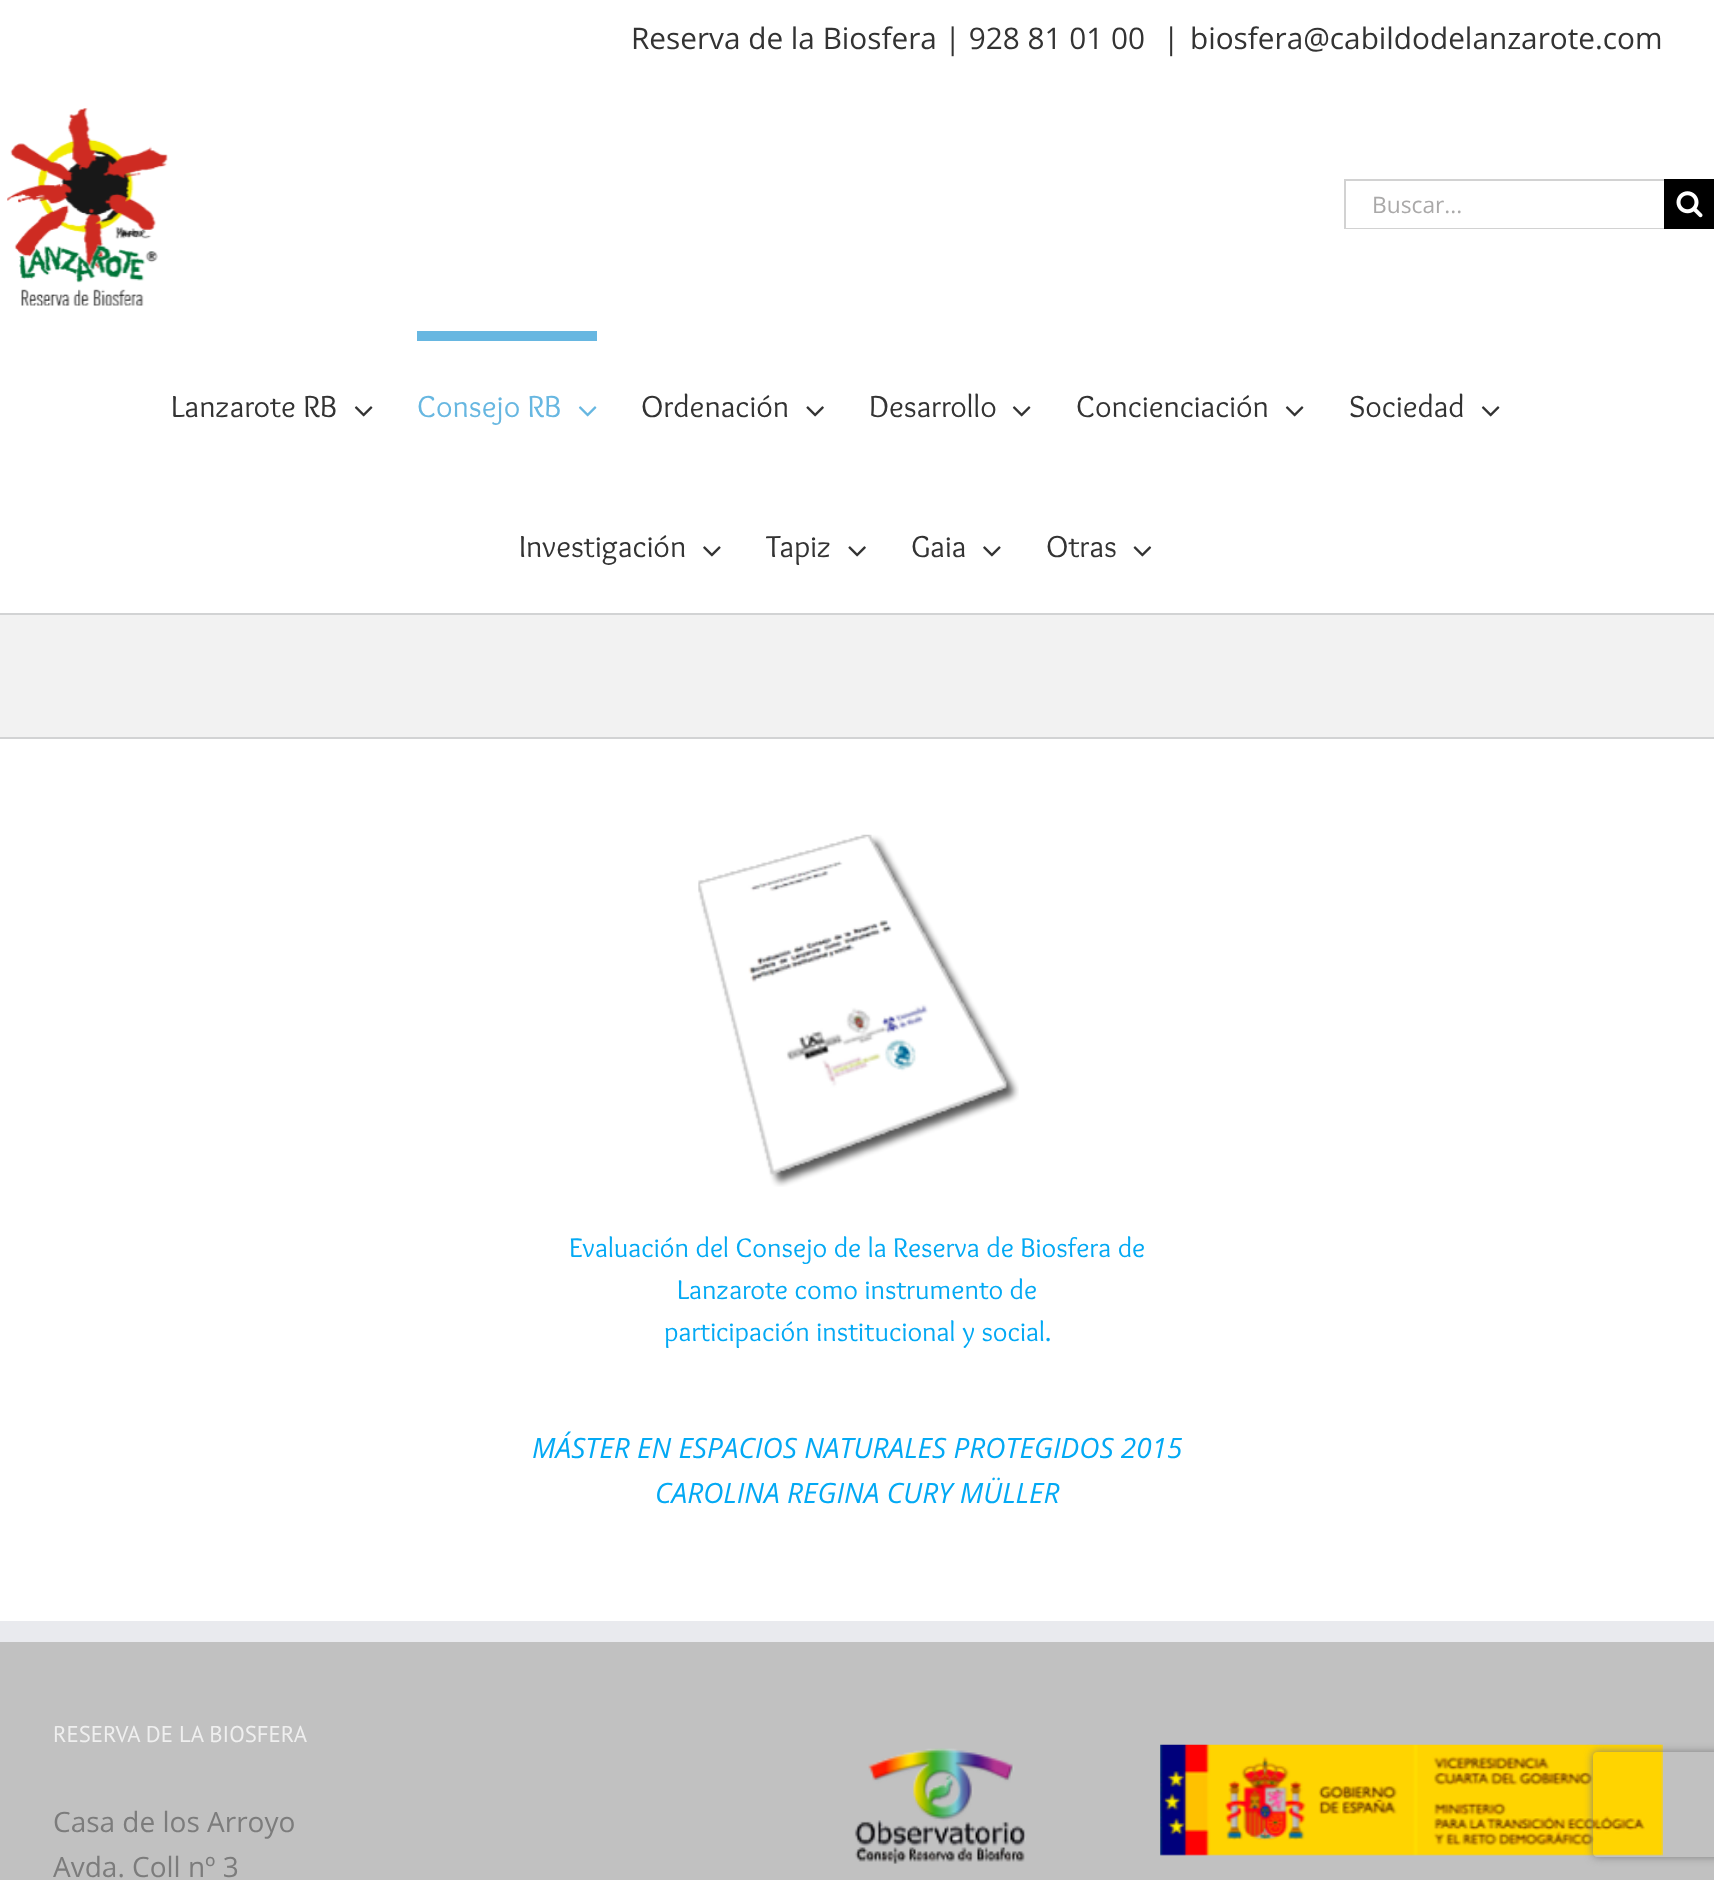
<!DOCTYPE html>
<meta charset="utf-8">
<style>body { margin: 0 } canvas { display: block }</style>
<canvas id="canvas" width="1714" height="1880"></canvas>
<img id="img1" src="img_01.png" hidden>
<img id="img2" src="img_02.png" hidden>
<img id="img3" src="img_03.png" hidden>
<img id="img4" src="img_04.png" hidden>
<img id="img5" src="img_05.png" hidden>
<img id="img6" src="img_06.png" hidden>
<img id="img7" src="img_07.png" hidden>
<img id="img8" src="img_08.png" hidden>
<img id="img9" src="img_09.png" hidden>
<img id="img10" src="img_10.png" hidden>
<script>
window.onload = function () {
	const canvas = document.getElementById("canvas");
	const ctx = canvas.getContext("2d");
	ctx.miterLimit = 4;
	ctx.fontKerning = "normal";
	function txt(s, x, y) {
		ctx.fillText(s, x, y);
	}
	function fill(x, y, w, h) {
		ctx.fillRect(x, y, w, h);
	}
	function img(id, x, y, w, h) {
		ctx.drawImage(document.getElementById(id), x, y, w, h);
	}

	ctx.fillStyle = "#FFFFFF";
	fill(0, 0, 1714, 1880);
	img("img1", 7, 108, 161, 198);
	ctx.fillStyle = "#D2D2D2";
	fill(1344, 179, 320, 2);
	fill(1344, 228, 320, 1);
	fill(1344, 179, 2, 50);
	ctx.fillStyle = "#000000";
	fill(1664, 179, 50, 50);
	img("img2", 1676, 191, 27, 27);
	img("img3", 354, 406, 19, 11);
	ctx.fillStyle = "#67B7E1";
	fill(417, 331, 180, 10);
	img("img4", 578, 406, 19, 11);
	img("img5", 806, 406, 18, 11);
	img("img3", 1012, 406, 19, 11);
	img("img3", 1285, 406, 19, 11);
	img("img3", 1481, 406, 19, 11);
	img("img6", 703, 546, 18, 11);
	img("img5", 848, 546, 18, 11);
	img("img6", 983, 546, 18, 11);
	img("img7", 1133, 546, 19, 11);
	ctx.fillStyle = "#F2F2F2";
	fill(0, 615, 1714, 122);
	ctx.fillStyle = "#D2D3D4";
	fill(0, 613, 1714, 2);
	fill(0, 737, 1714, 2);
	img("img8", 698, 834, 321, 353);
	ctx.fillStyle = "#C1C1C1";
	fill(0, 1642, 1714, 238);
	ctx.fillStyle = "#E9EAEE";
	fill(0, 1621, 1714, 21);
	img("img9", 854, 1748, 172, 116);
	img("img10", 1160, 1744, 503, 112);
	ctx.save();
	ctx.beginPath();
	ctx.moveTo(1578, 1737);
	ctx.lineTo(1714, 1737);
	ctx.lineTo(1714, 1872);
	ctx.lineTo(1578, 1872);
	ctx.closePath();
	ctx.moveTo(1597, 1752);
	ctx.lineTo(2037, 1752);
	ctx.bezierCurveTo(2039, 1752, 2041, 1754, 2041, 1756);
	ctx.lineTo(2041, 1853);
	ctx.bezierCurveTo(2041, 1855, 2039, 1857, 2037, 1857);
	ctx.lineTo(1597, 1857);
	ctx.bezierCurveTo(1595, 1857, 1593, 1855, 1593, 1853);
	ctx.lineTo(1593, 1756);
	ctx.bezierCurveTo(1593, 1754, 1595, 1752, 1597, 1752);
	ctx.closePath();
	ctx.clip("evenodd");
	ctx.fillStyle = "#808080";
	ctx.filter = "blur(4.5px)";
	ctx.beginPath();
	ctx.roundRect(1593, 1752, 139, 105, 4);
	ctx.fill();
	ctx.filter = "none";
	ctx.restore();
	ctx.font = "29.75px Open Sans";
	ctx.fillStyle = "#333333";
	txt("Reserva de la Biosfera | 928 81 01 00", 631, 49);
	txt("|", 1163, 49);
	txt("biosfera@cabildodelanzarote.com", 1190, 49);
	ctx.font = "22.75px Open Sans";
	ctx.fillStyle = "#AAA9A9";
	txt("Buscar...", 1372, 213);
	ctx.font = "31.5px Overlock";
	ctx.fillStyle = "#333333";
	txt("Lanzarote RB", 171, 417);
	ctx.fillStyle = "#67B7E1";
	txt("Consejo RB", 417, 417);
	ctx.fillStyle = "#333333";
	txt("Ordenación", 641, 417);
	txt("Desarrollo", 869, 417);
	txt("Concienciación", 1076, 417);
	txt("Sociedad", 1349, 417);
	txt("Investigación", 519, 557);
	txt("Tapiz", 766, 557);
	txt("Gaia", 911, 557);
	txt("Otras", 1046, 557);
	ctx.font = "28px Overlock";
	ctx.fillStyle = "#03A9F4";
	txt("Evaluación del Consejo de la Reserva de Biosfera de", 569, 1257);
	txt("Lanzarote como instrumento de", 677, 1299);
	txt("participación institucional y social.", 664, 1341);
	ctx.font = "italic 28px Open Sans";
	txt("MÁSTER EN ESPACIOS NATURALES PROTEGIDOS 2015", 532, 1458);
	txt("CAROLINA REGINA CURY MÜLLER", 655, 1503);
	ctx.font = "22.75px PT Sans";
	ctx.fillStyle = "#EFEFEF";
	txt("RESERVA DE LA BIOSFERA", 53, 1742);
	ctx.font = "28px Open Sans";
	ctx.fillStyle = "#7C7C7C";
	txt("Casa de los Arroyo", 53, 1832);
	txt("Avda. Coll nº 3", 53, 1877);
};
</script>
